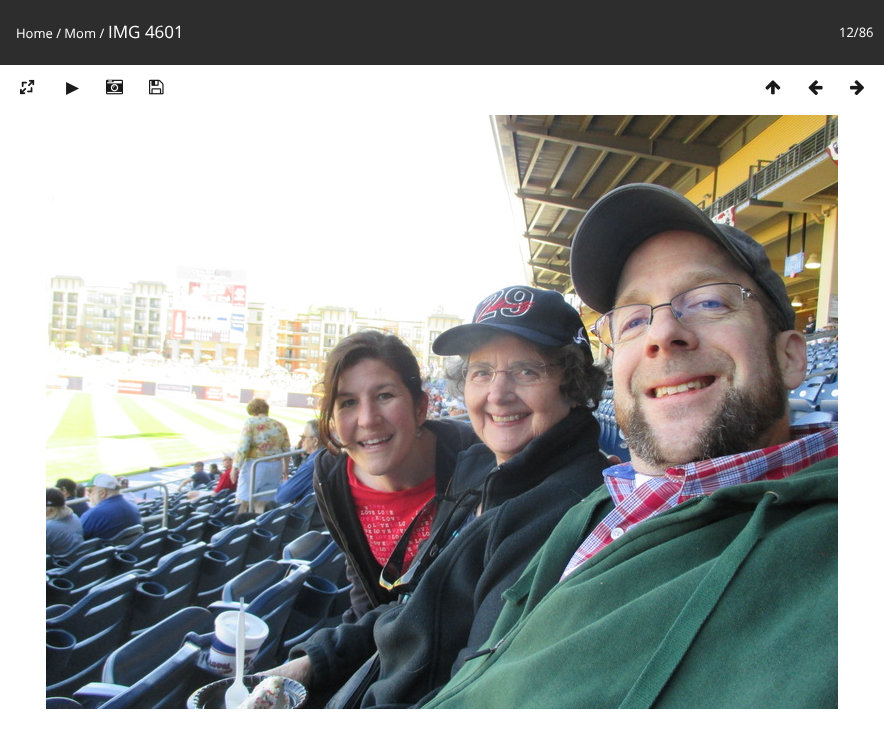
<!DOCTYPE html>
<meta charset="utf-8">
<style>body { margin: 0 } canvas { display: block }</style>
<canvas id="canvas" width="884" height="730"></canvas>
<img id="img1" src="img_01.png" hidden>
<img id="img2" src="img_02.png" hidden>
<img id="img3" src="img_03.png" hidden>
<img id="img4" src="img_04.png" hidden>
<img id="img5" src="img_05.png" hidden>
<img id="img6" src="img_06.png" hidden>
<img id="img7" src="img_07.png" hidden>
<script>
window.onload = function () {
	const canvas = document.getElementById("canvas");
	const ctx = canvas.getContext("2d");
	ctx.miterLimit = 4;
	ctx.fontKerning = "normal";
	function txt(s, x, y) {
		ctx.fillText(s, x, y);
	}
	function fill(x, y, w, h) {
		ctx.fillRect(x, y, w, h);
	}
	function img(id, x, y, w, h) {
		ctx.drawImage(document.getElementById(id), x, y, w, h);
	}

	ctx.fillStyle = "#FFFFFF";
	fill(0, 0, 884, 730);
	ctx.fillStyle = "#2D2D2D";
	fill(0, 0, 884, 65);
	img("img1", 20, 79, 15, 16);
	img("img2", 106, 79, 17, 16);
	img("img3", 149, 79, 15, 16);
	img("img4", 765, 80, 16, 15);
	img("img5", 808, 80, 15, 15);
	img("img6", 850, 80, 14, 15);
	img("img7", 46, 115, 792, 594);
	ctx.font = "13px Open Sans";
	ctx.fillStyle = "#FFFFFF";
	txt("Home / Mom /", 16, 38);
	ctx.font = "17px Open Sans";
	txt("IMG 4601", 108, 38);
	ctx.font = "13px Open Sans";
	txt("12/86", 839, 37);
	ctx.font = "17px DejaVu Sans";
	ctx.fillStyle = "#1A1A1A";
	txt("▶", 66, 93);
};
</script>
